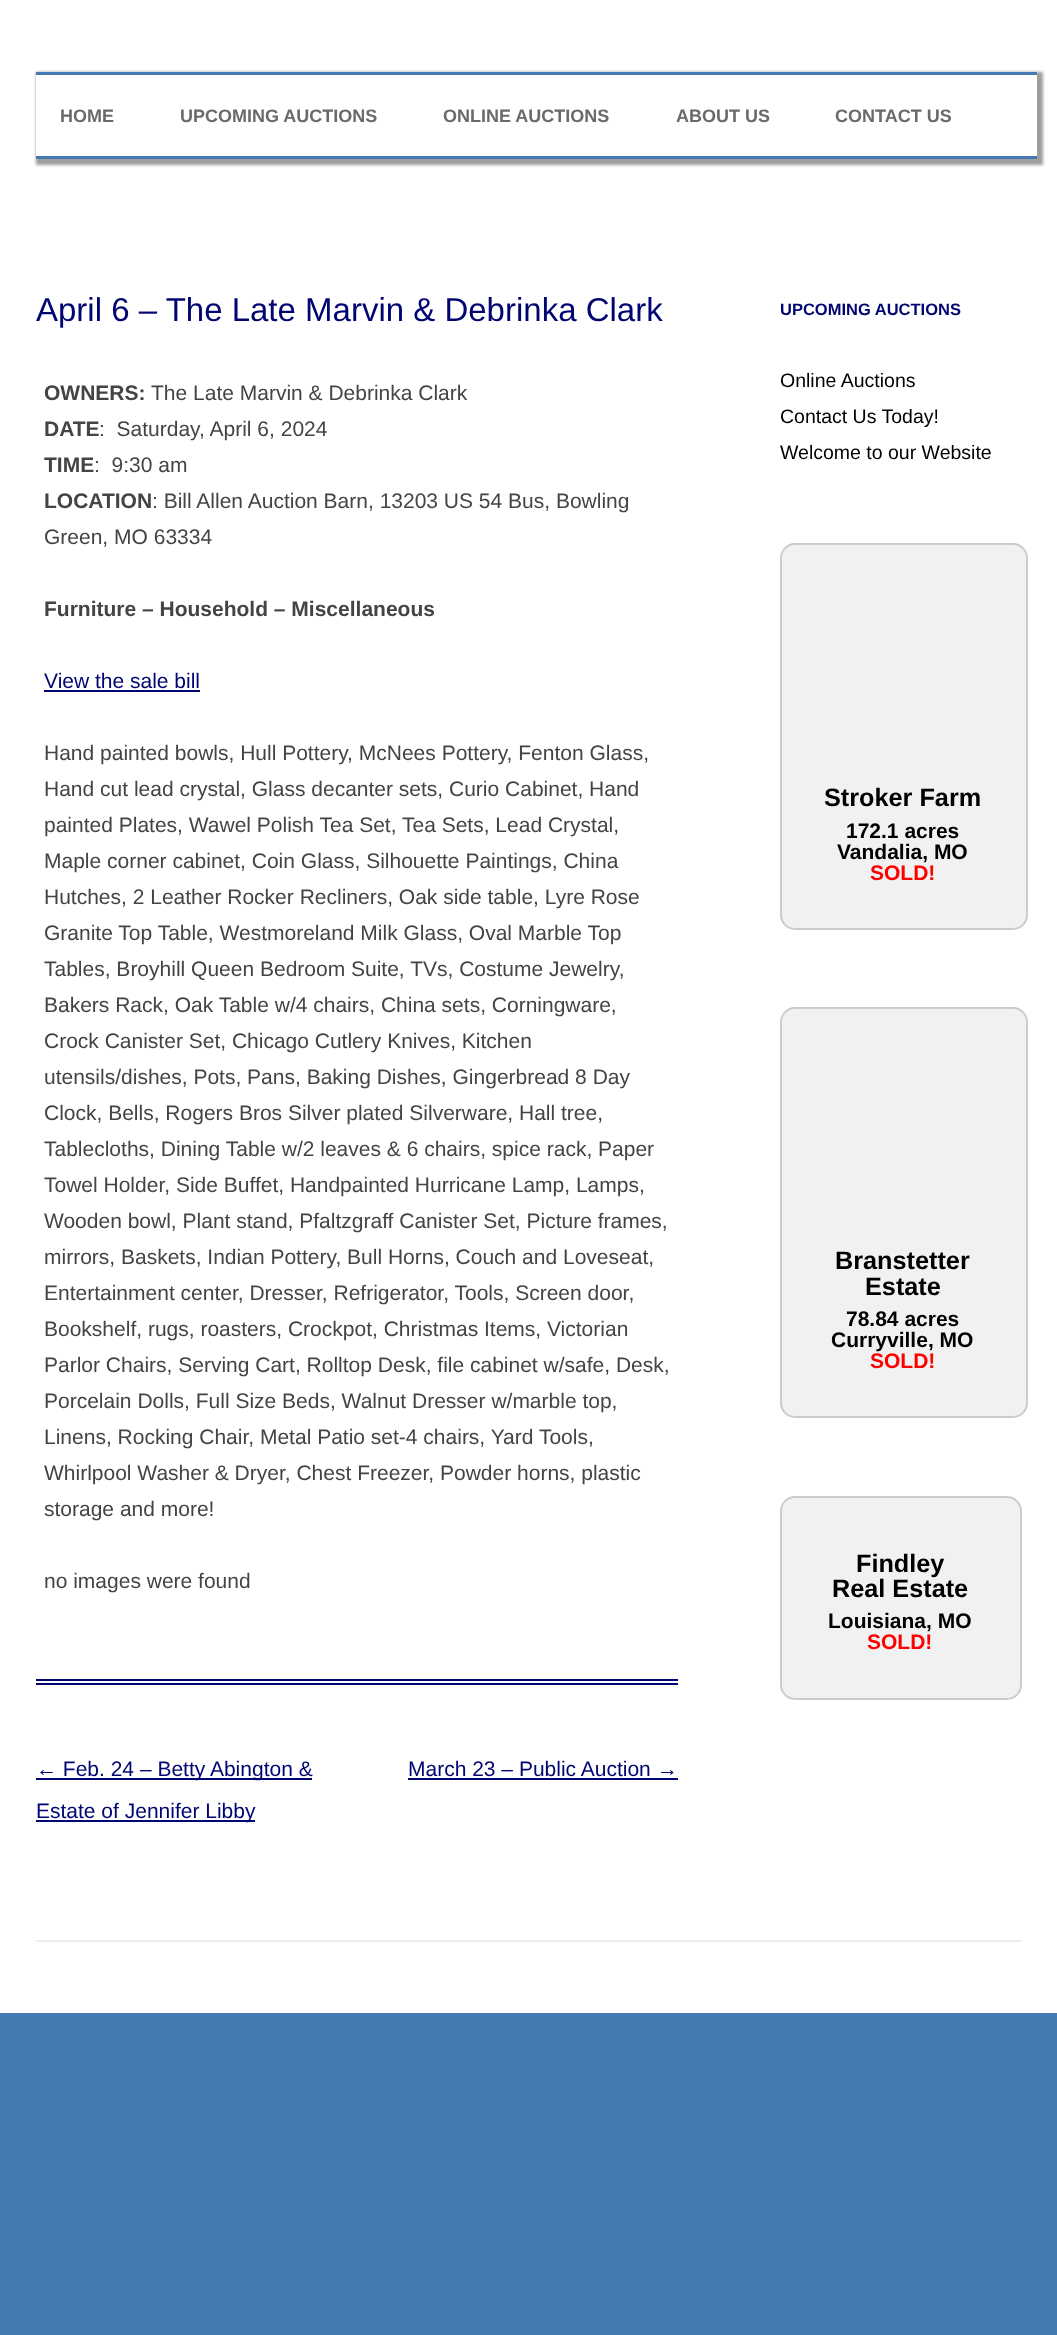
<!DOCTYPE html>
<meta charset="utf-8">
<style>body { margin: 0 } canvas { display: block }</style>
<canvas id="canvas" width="1057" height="2335"></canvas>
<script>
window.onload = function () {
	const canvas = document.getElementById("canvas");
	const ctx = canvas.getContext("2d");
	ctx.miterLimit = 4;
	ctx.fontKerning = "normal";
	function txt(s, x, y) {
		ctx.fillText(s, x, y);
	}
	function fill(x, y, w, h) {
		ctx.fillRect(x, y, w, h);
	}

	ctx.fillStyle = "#4579B2";
	fill(0, 0, 1057, 2335);
	ctx.fillStyle = "#FFFFFF";
	fill(0, 0, 1057, 2013);
	ctx.save();
	ctx.beginPath();
	ctx.moveTo(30, 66);
	ctx.lineTo(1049, 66);
	ctx.lineTo(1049, 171);
	ctx.lineTo(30, 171);
	ctx.closePath();
	ctx.moveTo(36, 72);
	ctx.lineTo(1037, 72);
	ctx.lineTo(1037, 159);
	ctx.lineTo(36, 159);
	ctx.closePath();
	ctx.clip("evenodd");
	ctx.fillStyle = "#9E9E9E";
	ctx.filter = "blur(1.5px)";
	ctx.beginPath();
	ctx.rect(36, 72, 1007, 93);
	ctx.fill();
	ctx.filter = "none";
	ctx.restore();
	ctx.fillStyle = "#4579B2";
	fill(36, 72, 1001, 3);
	fill(36, 156, 1001, 3);
	ctx.fillStyle = "#000571";
	fill(36, 1679, 642, 2);
	fill(36, 1683, 642, 2);
	fill(44, 690, 156, 2);
	fill(36, 1778, 276, 2);
	fill(36, 1820, 219, 2);
	fill(408, 1778, 270, 2);
	ctx.fillStyle = "#F1F1F1";
	ctx.beginPath();
	ctx.roundRect(781, 544, 246, 385, 14);
	ctx.fill();
	ctx.strokeStyle = "#CCCCCC";
	ctx.lineWidth = 2;
	ctx.stroke();
	ctx.beginPath();
	ctx.roundRect(781, 1008, 246, 409, 14);
	ctx.fill();
	ctx.stroke();
	ctx.beginPath();
	ctx.roundRect(781, 1497, 240, 202, 14);
	ctx.fill();
	ctx.stroke();
	ctx.fillStyle = "#EDEDED";
	fill(36, 1940, 986, 2);
	ctx.font = "bold 18px Liberation Sans";
	ctx.fillStyle = "#6A6A6A";
	txt("HOME", 60, 122);
	txt("UPCOMING AUCTIONS", 180, 122);
	txt("ONLINE AUCTIONS", 443, 122);
	txt("ABOUT US", 676, 122);
	txt("CONTACT US", 835, 122);
	ctx.font = "33px Liberation Sans";
	ctx.fillStyle = "#000571";
	txt("April 6 – The Late Marvin & Debrinka Clark", 36, 321);
	ctx.font = "bold 21px Liberation Sans";
	ctx.fillStyle = "#444444";
	txt("OWNERS:", 44, 400);
	ctx.font = "21px Liberation Sans";
	txt("The Late Marvin & Debrinka Clark", 151, 400);
	ctx.font = "bold 21px Liberation Sans";
	txt("DATE", 44, 436);
	ctx.font = "21px Liberation Sans";
	txt(":  Saturday, April 6, 2024", 99, 436);
	ctx.font = "bold 21px Liberation Sans";
	txt("TIME", 44, 472);
	ctx.font = "21px Liberation Sans";
	txt(":  9:30 am", 94, 472);
	ctx.font = "bold 21px Liberation Sans";
	txt("LOCATION", 44, 508);
	ctx.font = "21px Liberation Sans";
	txt(": Bill Allen Auction Barn, 13203 US 54 Bus, Bowling", 152, 508);
	txt("Green, MO 63334", 44, 544);
	ctx.font = "bold 21px Liberation Sans";
	txt("Furniture – Household – Miscellaneous", 44, 616);
	ctx.font = "21px Liberation Sans";
	ctx.fillStyle = "#000571";
	txt("View the sale bill", 44, 688);
	ctx.fillStyle = "#444444";
	txt("Hand painted bowls, Hull Pottery, McNees Pottery, Fenton Glass,", 44, 760);
	txt("Hand cut lead crystal, Glass decanter sets, Curio Cabinet, Hand", 44, 796);
	txt("painted Plates, Wawel Polish Tea Set, Tea Sets, Lead Crystal,", 44, 832);
	txt("Maple corner cabinet, Coin Glass, Silhouette Paintings, China", 44, 868);
	txt("Hutches, 2 Leather Rocker Recliners, Oak side table, Lyre Rose", 44, 904);
	txt("Granite Top Table, Westmoreland Milk Glass, Oval Marble Top", 44, 940);
	txt("Tables, Broyhill Queen Bedroom Suite, TVs, Costume Jewelry,", 44, 976);
	txt("Bakers Rack, Oak Table w/4 chairs, China sets, Corningware,", 44, 1012);
	txt("Crock Canister Set, Chicago Cutlery Knives, Kitchen", 44, 1048);
	txt("utensils/dishes, Pots, Pans, Baking Dishes, Gingerbread 8 Day", 44, 1084);
	txt("Clock, Bells, Rogers Bros Silver plated Silverware, Hall tree,", 44, 1120);
	txt("Tablecloths, Dining Table w/2 leaves & 6 chairs, spice rack, Paper", 44, 1156);
	txt("Towel Holder, Side Buffet, Handpainted Hurricane Lamp, Lamps,", 44, 1192);
	txt("Wooden bowl, Plant stand, Pfaltzgraff Canister Set, Picture frames,", 44, 1228);
	txt("mirrors, Baskets, Indian Pottery, Bull Horns, Couch and Loveseat,", 44, 1264);
	txt("Entertainment center, Dresser, Refrigerator, Tools, Screen door,", 44, 1300);
	txt("Bookshelf, rugs, roasters, Crockpot, Christmas Items, Victorian", 44, 1336);
	txt("Parlor Chairs, Serving Cart, Rolltop Desk, file cabinet w/safe, Desk,", 44, 1372);
	txt("Porcelain Dolls, Full Size Beds, Walnut Dresser w/marble top,", 44, 1408);
	txt("Linens, Rocking Chair, Metal Patio set-4 chairs, Yard Tools,", 44, 1444);
	txt("Whirlpool Washer & Dryer, Chest Freezer, Powder horns, plastic", 44, 1480);
	txt("storage and more!", 44, 1516);
	txt("no images were found", 44, 1588);
	ctx.fillStyle = "#000571";
	txt("← Feb. 24 – Betty Abington &", 36, 1776);
	txt("Estate of Jennifer Libby", 36, 1818);
	txt("March 23 – Public Auction →", 408, 1776);
	ctx.font = "bold 16.5px Liberation Sans";
	txt("UPCOMING AUCTIONS", 780, 315);
	ctx.font = "19.5px Liberation Sans";
	ctx.fillStyle = "#000000";
	txt("Online Auctions", 780, 387);
	txt("Contact Us Today!", 780, 423);
	txt("Welcome to our Website", 780, 459);
	ctx.font = "bold 25.25px Liberation Sans";
	txt("Stroker Farm", 824, 806);
	ctx.font = "bold 21px Liberation Sans";
	txt("172.1 acres", 846, 838);
	txt("Vandalia, MO", 837, 859);
	ctx.fillStyle = "#FF0000";
	txt("SOLD!", 870, 880);
	ctx.font = "bold 25.25px Liberation Sans";
	ctx.fillStyle = "#000000";
	txt("Branstetter", 835, 1269);
	txt("Estate", 865, 1295);
	ctx.font = "bold 21px Liberation Sans";
	txt("78.84 acres", 846, 1326);
	txt("Curryville, MO", 831, 1347);
	ctx.fillStyle = "#FF0000";
	txt("SOLD!", 870, 1368);
	ctx.font = "bold 25.25px Liberation Sans";
	ctx.fillStyle = "#000000";
	txt("Findley", 856, 1572);
	txt("Real Estate", 832, 1597);
	ctx.font = "bold 21px Liberation Sans";
	txt("Louisiana, MO", 828, 1628);
	ctx.fillStyle = "#FF0000";
	txt("SOLD!", 867, 1649);
};
</script>
